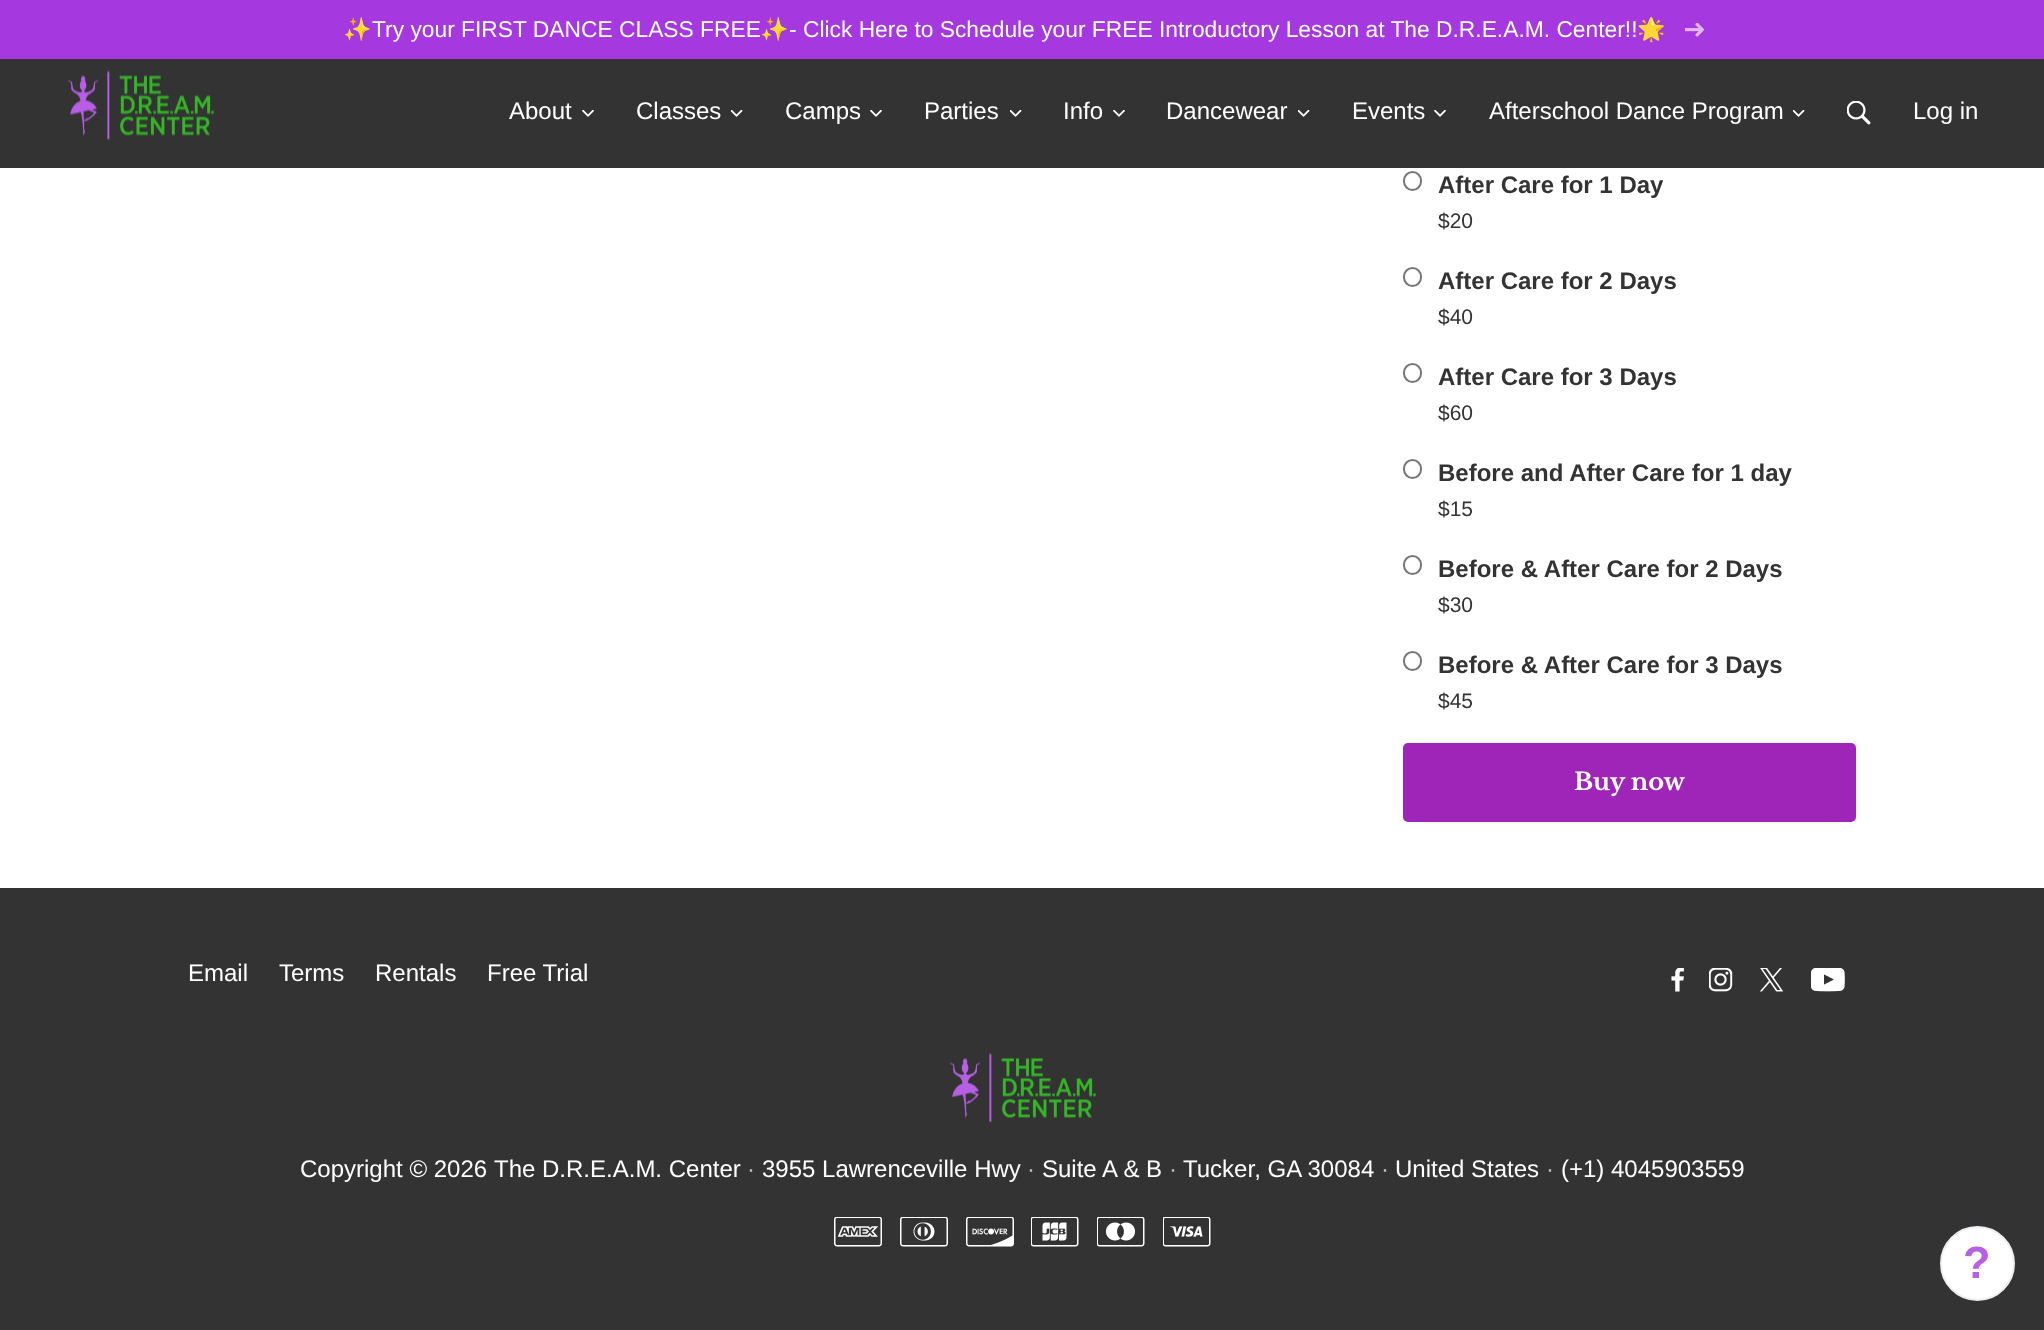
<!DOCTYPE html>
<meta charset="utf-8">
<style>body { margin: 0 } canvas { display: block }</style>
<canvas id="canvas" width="2044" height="1330"></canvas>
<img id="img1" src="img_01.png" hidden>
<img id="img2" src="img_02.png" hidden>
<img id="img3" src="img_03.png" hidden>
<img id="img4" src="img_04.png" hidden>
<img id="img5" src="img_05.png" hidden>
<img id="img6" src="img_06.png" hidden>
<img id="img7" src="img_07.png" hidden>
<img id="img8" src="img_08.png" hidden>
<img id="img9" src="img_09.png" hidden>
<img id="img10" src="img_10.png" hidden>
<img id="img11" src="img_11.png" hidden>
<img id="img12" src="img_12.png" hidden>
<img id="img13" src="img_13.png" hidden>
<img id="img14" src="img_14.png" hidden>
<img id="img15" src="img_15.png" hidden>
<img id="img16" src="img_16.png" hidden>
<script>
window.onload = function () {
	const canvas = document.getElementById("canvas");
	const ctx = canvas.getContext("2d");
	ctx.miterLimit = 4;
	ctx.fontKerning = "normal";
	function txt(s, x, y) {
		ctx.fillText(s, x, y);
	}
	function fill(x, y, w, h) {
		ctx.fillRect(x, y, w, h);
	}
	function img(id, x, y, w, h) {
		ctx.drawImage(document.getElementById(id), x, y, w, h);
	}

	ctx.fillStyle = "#FFFFFF";
	fill(0, 0, 2044, 1330);
	ctx.fillStyle = "#333333";
	fill(0, 59, 2044, 109);
	ctx.fillStyle = "#A538DE";
	fill(0, 0, 2044, 59);
	img("img1", 1685, 23, 20, 14);
	img("img2", 68, 70, 146, 71);
	img("img3", 582, 110, 12, 7);
	img("img4", 731, 110, 12, 7);
	img("img3", 870, 110, 12, 7);
	img("img4", 1010, 110, 12, 7);
	img("img3", 1113, 110, 12, 7);
	img("img4", 1298, 110, 12, 7);
	img("img3", 1434, 110, 12, 7);
	img("img4", 1793, 110, 12, 7);
	img("img5", 1847, 101, 24, 24);
	ctx.beginPath();
	ctx.roundRect(1404, 172, 17, 18, 8.5);
	ctx.strokeStyle = "#767676";
	ctx.lineWidth = 2;
	ctx.stroke();
	ctx.beginPath();
	ctx.roundRect(1404, 268, 17, 18, 8.5);
	ctx.stroke();
	ctx.beginPath();
	ctx.roundRect(1404, 364, 17, 18, 8.5);
	ctx.stroke();
	ctx.beginPath();
	ctx.roundRect(1404, 460, 17, 18, 8.5);
	ctx.stroke();
	ctx.beginPath();
	ctx.roundRect(1404, 556, 17, 18, 8.5);
	ctx.stroke();
	ctx.beginPath();
	ctx.roundRect(1404, 652, 17, 18, 8.5);
	ctx.stroke();
	ctx.fillStyle = "#9F25B9";
	ctx.beginPath();
	ctx.roundRect(1404.5, 744.5, 450, 76, 3.5);
	ctx.fill();
	ctx.strokeStyle = "#9F25B9";
	ctx.lineWidth = 3;
	ctx.stroke();
	ctx.fillStyle = "#333333";
	fill(0, 888, 2044, 442);
	img("img6", 1671, 968, 13, 24);
	img("img7", 1709, 968, 24, 24);
	img("img8", 1759, 968, 25, 24);
	img("img9", 1811, 968, 34, 24);
	img("img10", 950, 1053, 146, 70);
	img("img11", 834, 1217, 48, 30);
	img("img12", 900, 1217, 48, 30);
	img("img13", 966, 1217, 48, 30);
	img("img14", 1031, 1217, 48, 30);
	img("img15", 1097, 1217, 48, 30);
	img("img16", 1163, 1217, 48, 30);
	ctx.fillStyle = "#FFFFFF";
	ctx.beginPath();
	ctx.arc(1977.5, 1263.5, 36.5, 0, Math.PI * 2);
	ctx.fill();
	ctx.strokeStyle = "#EDEEF1";
	ctx.lineWidth = 2;
	ctx.stroke();
	ctx.font = "22.8px Noto Color Emoji";
	txt("✨", 343, 37);
	ctx.font = "22.8px Liberation Sans";
	txt("Try your FIRST DANCE CLASS FREE", 372, 37);
	ctx.font = "22.8px Noto Color Emoji";
	txt("✨", 760, 37);
	ctx.font = "22.8px Liberation Sans";
	txt("- Click Here to Schedule your FREE Introductory Lesson at The D.R.E.A.M. Center!!", 789, 37);
	ctx.font = "22.8px Noto Color Emoji";
	txt("🌟", 1637, 37);
	ctx.font = "24px Liberation Sans";
	txt("About", 509, 119);
	txt("Classes", 636, 119);
	txt("Camps", 785, 119);
	txt("Parties", 924, 119);
	txt("Info", 1063, 119);
	txt("Dancewear", 1166, 119);
	txt("Events", 1352, 119);
	txt("Afterschool Dance Program", 1489, 119);
	txt("Log in", 1913, 119);
	ctx.font = "bold 24px Liberation Sans";
	ctx.fillStyle = "#333333";
	txt("After Care for 1 Day", 1438, 193);
	ctx.font = "21px Liberation Sans";
	txt("$20", 1438, 228);
	ctx.font = "bold 24px Liberation Sans";
	txt("After Care for 2 Days", 1438, 289);
	ctx.font = "21px Liberation Sans";
	txt("$40", 1438, 324);
	ctx.font = "bold 24px Liberation Sans";
	txt("After Care for 3 Days", 1438, 385);
	ctx.font = "21px Liberation Sans";
	txt("$60", 1438, 420);
	ctx.font = "bold 24px Liberation Sans";
	txt("Before and After Care for 1 day", 1438, 481);
	ctx.font = "21px Liberation Sans";
	txt("$15", 1438, 516);
	ctx.font = "bold 24px Liberation Sans";
	txt("Before & After Care for 2 Days", 1438, 577);
	ctx.font = "21px Liberation Sans";
	txt("$30", 1438, 612);
	ctx.font = "bold 24px Liberation Sans";
	txt("Before & After Care for 3 Days", 1438, 673);
	ctx.font = "21px Liberation Sans";
	txt("$45", 1438, 708);
	ctx.font = "bold 24px Libre Baskerville";
	ctx.fillStyle = "#FFFFFF";
	txt("Buy now", 1574, 790);
	ctx.font = "24px Liberation Sans";
	txt("Email", 188, 981);
	txt("Terms", 279, 981);
	txt("Rentals", 375, 981);
	txt("Free Trial", 487, 981);
	txt("Copyright © 2026", 300, 1177);
	txt("The D.R.E.A.M. Center", 494, 1177);
	ctx.fillStyle = "#BCBCBC";
	txt("·", 747, 1177);
	ctx.fillStyle = "#FFFFFF";
	txt("3955 Lawrenceville Hwy", 762, 1177);
	ctx.fillStyle = "#BCBCBC";
	txt("·", 1027, 1177);
	ctx.fillStyle = "#FFFFFF";
	txt("Suite A & B", 1042, 1177);
	ctx.fillStyle = "#BCBCBC";
	txt("·", 1169, 1177);
	ctx.fillStyle = "#FFFFFF";
	txt("Tucker, GA 30084", 1183, 1177);
	ctx.fillStyle = "#BCBCBC";
	txt("·", 1381, 1177);
	ctx.fillStyle = "#FFFFFF";
	txt("United States", 1395, 1177);
	ctx.fillStyle = "#BCBCBC";
	txt("·", 1546, 1177);
	ctx.fillStyle = "#FFFFFF";
	txt("(+1) 4045903559", 1561, 1177);
	ctx.font = "bold 45px Liberation Sans";
	ctx.fillStyle = "#B760E5";
	txt("?", 1963, 1278);
};
</script>
